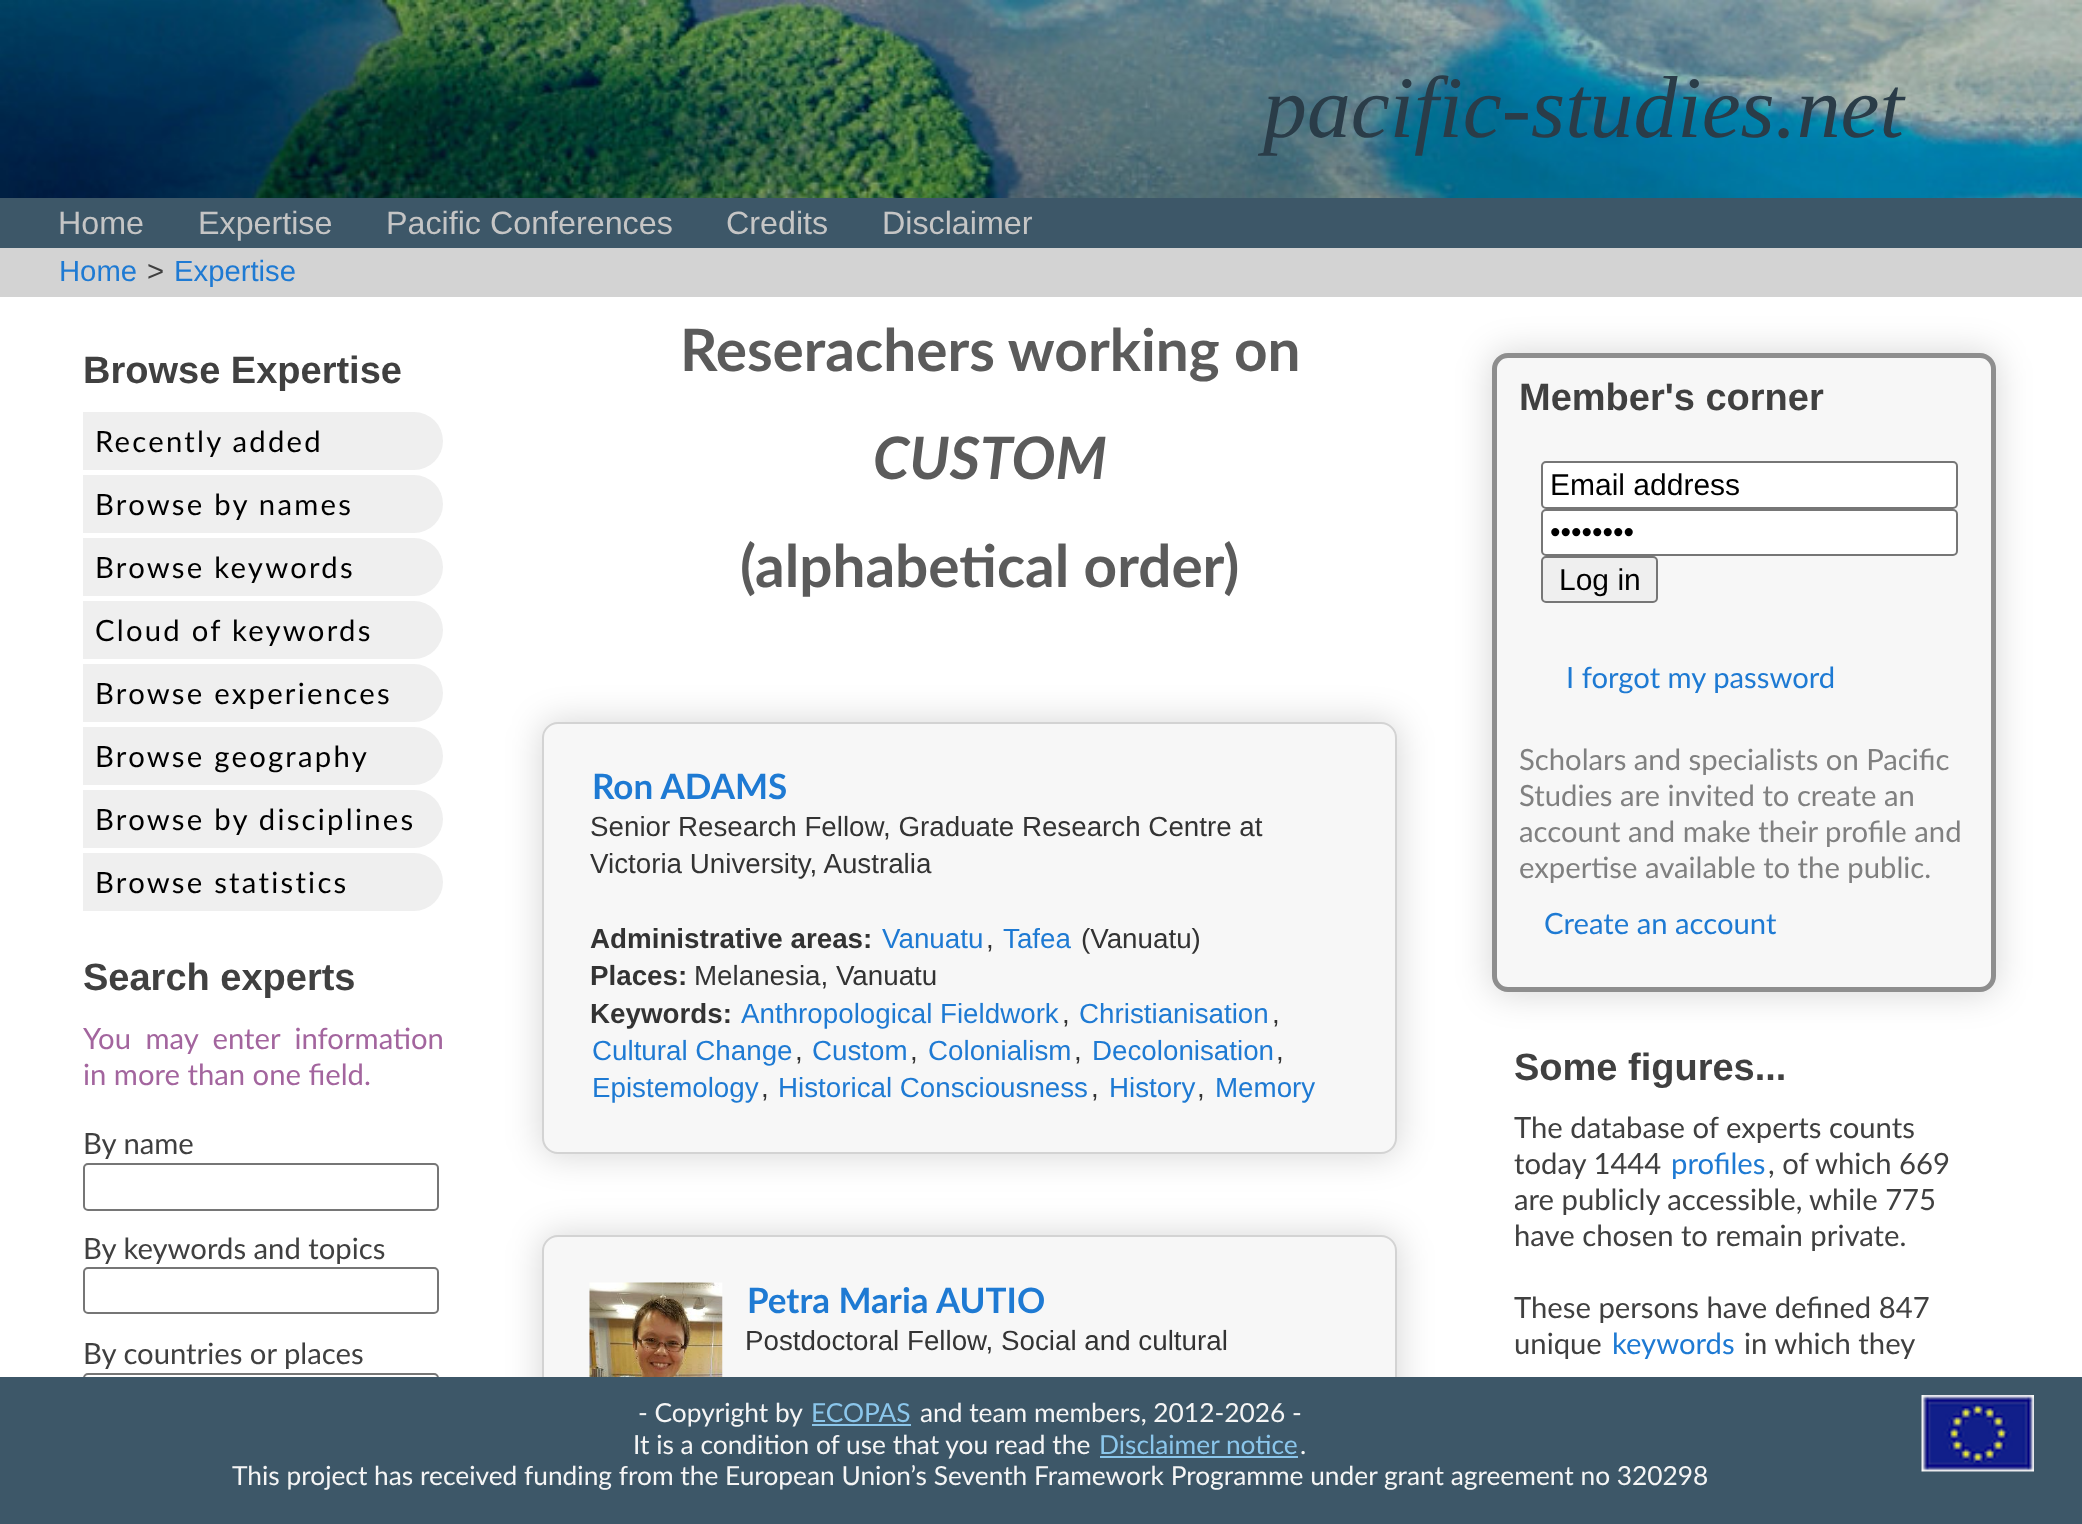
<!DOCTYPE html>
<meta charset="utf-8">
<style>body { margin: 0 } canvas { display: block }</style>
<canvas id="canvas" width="2082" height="1524"></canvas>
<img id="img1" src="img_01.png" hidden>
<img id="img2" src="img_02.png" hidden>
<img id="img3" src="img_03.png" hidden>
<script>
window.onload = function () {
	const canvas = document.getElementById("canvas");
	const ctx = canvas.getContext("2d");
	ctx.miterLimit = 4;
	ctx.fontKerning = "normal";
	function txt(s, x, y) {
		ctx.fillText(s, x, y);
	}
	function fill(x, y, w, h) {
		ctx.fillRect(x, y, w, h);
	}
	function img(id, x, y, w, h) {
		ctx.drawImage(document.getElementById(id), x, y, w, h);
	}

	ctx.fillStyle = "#FFFFFF";
	fill(0, 0, 2082, 1524);
	img("img1", 0, 0, 2082, 198);
	ctx.fillStyle = "#3D5768";
	fill(0, 198, 2082, 50);
	ctx.fillStyle = "#D3D3D3";
	fill(0, 248, 2082, 49);
	ctx.fillStyle = "#EFEFEF";
	ctx.beginPath();
	ctx.roundRect(83, 412, 360, 58, [0, 29, 29, 0]);
	ctx.fill();
	ctx.beginPath();
	ctx.roundRect(83, 475, 360, 58, [0, 29, 29, 0]);
	ctx.fill();
	ctx.beginPath();
	ctx.roundRect(83, 538, 360, 58, [0, 29, 29, 0]);
	ctx.fill();
	ctx.beginPath();
	ctx.roundRect(83, 601, 360, 58, [0, 29, 29, 0]);
	ctx.fill();
	ctx.beginPath();
	ctx.roundRect(83, 664, 360, 58, [0, 29, 29, 0]);
	ctx.fill();
	ctx.beginPath();
	ctx.roundRect(83, 727, 360, 58, [0, 29, 29, 0]);
	ctx.fill();
	ctx.beginPath();
	ctx.roundRect(83, 790, 360, 58, [0, 29, 29, 0]);
	ctx.fill();
	ctx.beginPath();
	ctx.roundRect(83, 853, 360, 58, [0, 29, 29, 0]);
	ctx.fill();
	ctx.beginPath();
	ctx.roundRect(84, 1164, 354, 46, 4);
	ctx.strokeStyle = "#767676";
	ctx.lineWidth = 2;
	ctx.stroke();
	ctx.beginPath();
	ctx.roundRect(84, 1268, 354, 45, 4);
	ctx.stroke();
	ctx.beginPath();
	ctx.roundRect(84, 1374, 354, 45, 4);
	ctx.stroke();
	ctx.fillStyle = "rgba(0, 0, 0, 0.15)";
	ctx.filter = "blur(17px)";
	ctx.beginPath();
	ctx.roundRect(540, 720, 860, 437, 18);
	ctx.fill();
	ctx.filter = "none";
	ctx.fillStyle = "#F7F7F7";
	ctx.beginPath();
	ctx.roundRect(543, 723, 853, 430, 15);
	ctx.fill();
	ctx.strokeStyle = "#D3D3D3";
	ctx.stroke();
	ctx.fillStyle = "rgba(0, 0, 0, 0.15)";
	ctx.filter = "blur(17px)";
	ctx.beginPath();
	ctx.roundRect(540, 1233, 860, 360, 18);
	ctx.fill();
	ctx.filter = "none";
	ctx.fillStyle = "#F7F7F7";
	ctx.beginPath();
	ctx.roundRect(543, 1236, 853, 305, 15);
	ctx.fill();
	ctx.stroke();
	img("img2", 589, 1282, 134, 95);
	ctx.fillStyle = "rgba(0, 0, 0, 0.15)";
	ctx.filter = "blur(17px)";
	ctx.beginPath();
	ctx.roundRect(1490, 351, 508, 644, 18);
	ctx.fill();
	ctx.filter = "none";
	ctx.fillStyle = "#F7F7F7";
	ctx.beginPath();
	ctx.roundRect(1494.5, 355.5, 499, 634, 13.5);
	ctx.fill();
	ctx.strokeStyle = "#8E8E8E";
	ctx.lineWidth = 5;
	ctx.stroke();
	ctx.fillStyle = "#FFFFFF";
	ctx.beginPath();
	ctx.roundRect(1542, 462, 415, 46, 4);
	ctx.fill();
	ctx.strokeStyle = "#767676";
	ctx.lineWidth = 2;
	ctx.stroke();
	ctx.beginPath();
	ctx.roundRect(1542, 510, 415, 45, 4);
	ctx.fill();
	ctx.stroke();
	ctx.fillStyle = "#EFEFEF";
	ctx.beginPath();
	ctx.roundRect(1542, 557, 115, 45, 4);
	ctx.fill();
	ctx.stroke();
	ctx.fillStyle = "#3D5768";
	fill(0, 1377, 2082, 147);
	ctx.fillStyle = "#8BC6EB";
	fill(812, 1424, 99, 2);
	img("img3", 1921, 1395, 113, 77);
	fill(1100, 1456, 198, 2);
	ctx.font = "italic 87.75px Liberation Serif";
	ctx.fillStyle = "#2A3C48";
	txt("pacific-studies.net", 1263, 137);
	ctx.font = "32.25px Liberation Sans";
	ctx.fillStyle = "#C5C5C5";
	txt("Home", 58, 234);
	txt("Expertise", 198, 234);
	txt("Pacific Conferences", 386, 234);
	txt("Credits", 726, 234);
	txt("Disclaimer", 882, 234);
	ctx.font = "29.25px Liberation Sans";
	ctx.fillStyle = "#1E7AD3";
	txt("Home", 59, 281);
	ctx.fillStyle = "#404040";
	txt(">", 147, 281);
	ctx.fillStyle = "#1E7AD3";
	txt("Expertise", 174, 281);
	ctx.font = "bold 38px Liberation Sans";
	ctx.fillStyle = "#404040";
	txt("Browse Expertise", 83, 383);
	ctx.letterSpacing = "2.25px";
	ctx.font = "29.25px Lato";
	ctx.fillStyle = "#000000";
	txt("Recently added", 95, 452);
	txt("Browse by names", 95, 515);
	txt("Browse keywords", 95, 578);
	txt("Cloud of keywords", 95, 641);
	txt("Browse experiences", 95, 704);
	txt("Browse geography", 95, 767);
	txt("Browse by disciplines", 95, 830);
	txt("Browse statistics", 95, 893);
	ctx.letterSpacing = "0px";
	ctx.font = "bold 38px Liberation Sans";
	ctx.fillStyle = "#404040";
	txt("Search experts", 83, 990);
	ctx.wordSpacing = "7px";
	ctx.font = "29.25px Lato";
	ctx.fillStyle = "#A3659E";
	txt("You may enter information", 83, 1049);
	ctx.wordSpacing = "0px";
	txt("in more than one field.", 83, 1085);
	ctx.fillStyle = "#404040";
	txt("By name", 83, 1154);
	txt("By keywords and topics", 83, 1259);
	txt("By countries or places", 83, 1364);
	ctx.font = "bold 58.5px Lato";
	ctx.fillStyle = "#5B5B5B";
	txt("Reserachers working on", 680, 371);
	ctx.font = "italic bold 58.5px Lato";
	txt("CUSTOM", 873, 479);
	ctx.font = "bold 58.5px Lato";
	txt("(alphabetical order)", 740, 587);
	ctx.font = "bold 35px Lato";
	ctx.fillStyle = "#1E7AD3";
	txt("Ron ADAMS", 592, 799);
	ctx.font = "27.75px Liberation Sans";
	ctx.fillStyle = "#333333";
	txt("Senior Research Fellow, Graduate Research Centre at", 590, 836);
	txt("Victoria University, Australia", 590, 873);
	ctx.font = "bold 27.75px Liberation Sans";
	txt("Administrative areas:", 590, 948);
	ctx.font = "27.75px Liberation Sans";
	ctx.fillStyle = "#1E7AD3";
	txt("Vanuatu", 882, 948);
	ctx.fillStyle = "#333333";
	txt(",", 986, 948);
	ctx.fillStyle = "#1E7AD3";
	txt("Tafea", 1003, 948);
	ctx.fillStyle = "#333333";
	txt("(Vanuatu)", 1081, 948);
	ctx.font = "bold 27.75px Liberation Sans";
	txt("Places:", 590, 985);
	ctx.font = "27.75px Liberation Sans";
	txt("Melanesia, Vanuatu", 694, 985);
	ctx.font = "bold 27.75px Liberation Sans";
	txt("Keywords:", 590, 1023);
	ctx.font = "27.75px Liberation Sans";
	ctx.fillStyle = "#1E7AD3";
	txt("Anthropological Fieldwork", 741, 1023);
	ctx.fillStyle = "#333333";
	txt(",", 1062, 1023);
	ctx.fillStyle = "#1E7AD3";
	txt("Christianisation", 1079, 1023);
	ctx.fillStyle = "#333333";
	txt(",", 1272, 1023);
	ctx.fillStyle = "#1E7AD3";
	txt("Cultural Change", 592, 1060);
	ctx.fillStyle = "#333333";
	txt(",", 795, 1060);
	ctx.fillStyle = "#1E7AD3";
	txt("Custom", 812, 1060);
	ctx.fillStyle = "#333333";
	txt(",", 910, 1060);
	ctx.fillStyle = "#1E7AD3";
	txt("Colonialism", 928, 1060);
	ctx.fillStyle = "#333333";
	txt(",", 1074, 1060);
	ctx.fillStyle = "#1E7AD3";
	txt("Decolonisation", 1092, 1060);
	ctx.fillStyle = "#333333";
	txt(",", 1276, 1060);
	ctx.fillStyle = "#1E7AD3";
	txt("Epistemology", 592, 1097);
	ctx.fillStyle = "#333333";
	txt(",", 761, 1097);
	ctx.fillStyle = "#1E7AD3";
	txt("Historical Consciousness", 778, 1097);
	ctx.fillStyle = "#333333";
	txt(",", 1091, 1097);
	ctx.fillStyle = "#1E7AD3";
	txt("History", 1109, 1097);
	ctx.fillStyle = "#333333";
	txt(",", 1197, 1097);
	ctx.fillStyle = "#1E7AD3";
	txt("Memory", 1215, 1097);
	ctx.font = "bold 35px Lato";
	txt("Petra Maria AUTIO", 747, 1313);
	ctx.font = "27.75px Liberation Sans";
	ctx.fillStyle = "#333333";
	txt("Postdoctoral Fellow, Social and cultural", 745, 1350);
	ctx.font = "bold 38px Liberation Sans";
	ctx.fillStyle = "#404040";
	txt("Member's corner", 1519, 410);
	ctx.font = "30px Liberation Sans";
	ctx.fillStyle = "#000000";
	txt("Email address", 1550, 495);
	txt("••••••••", 1550, 542);
	txt("Log in", 1559, 590);
	ctx.font = "29.25px Lato";
	ctx.fillStyle = "#1E7AD3";
	txt("I forgot my password", 1566, 688);
	ctx.fillStyle = "#808080";
	txt("Scholars and specialists on Pacific", 1519, 770);
	txt("Studies are invited to create an", 1519, 806);
	txt("account and make their profile and", 1519, 842);
	txt("expertise available to the public.", 1519, 878);
	ctx.fillStyle = "#1E7AD3";
	txt("Create an account", 1544, 934);
	ctx.font = "bold 38px Liberation Sans";
	ctx.fillStyle = "#404040";
	txt("Some figures...", 1514, 1080);
	ctx.font = "29.25px Lato";
	txt("The database of experts counts", 1514, 1138);
	txt("today 1444", 1514, 1174);
	ctx.fillStyle = "#1E7AD3";
	txt("profiles", 1671, 1174);
	ctx.fillStyle = "#404040";
	txt(", of which 669", 1768, 1174);
	txt("are publicly accessible,", 1514, 1210);
	txt("while 775", 1809, 1210);
	txt("have chosen to remain private.", 1514, 1246);
	txt("These persons have defined 847", 1514, 1318);
	txt("unique", 1514, 1354);
	ctx.fillStyle = "#1E7AD3";
	txt("keywords", 1612, 1354);
	ctx.fillStyle = "#404040";
	txt("in which they", 1744, 1354);
	ctx.font = "26.32px Lato";
	ctx.fillStyle = "#F5F5F5";
	txt("- Copyright by", 638, 1422);
	ctx.fillStyle = "#8BC6EB";
	txt("ECOPAS", 811, 1422);
	ctx.fillStyle = "#F5F5F5";
	txt("and team members, 2012-2026 -", 920, 1422);
	txt("It is a condition of use that you read the", 633, 1454);
	ctx.fillStyle = "#8BC6EB";
	txt("Disclaimer notice", 1099, 1454);
	ctx.fillStyle = "#F5F5F5";
	txt(".", 1300, 1454);
	txt("This project has received funding from the European Union’s Seventh Framework Programme under grant agreement no 320298", 232, 1485);
};
</script>
